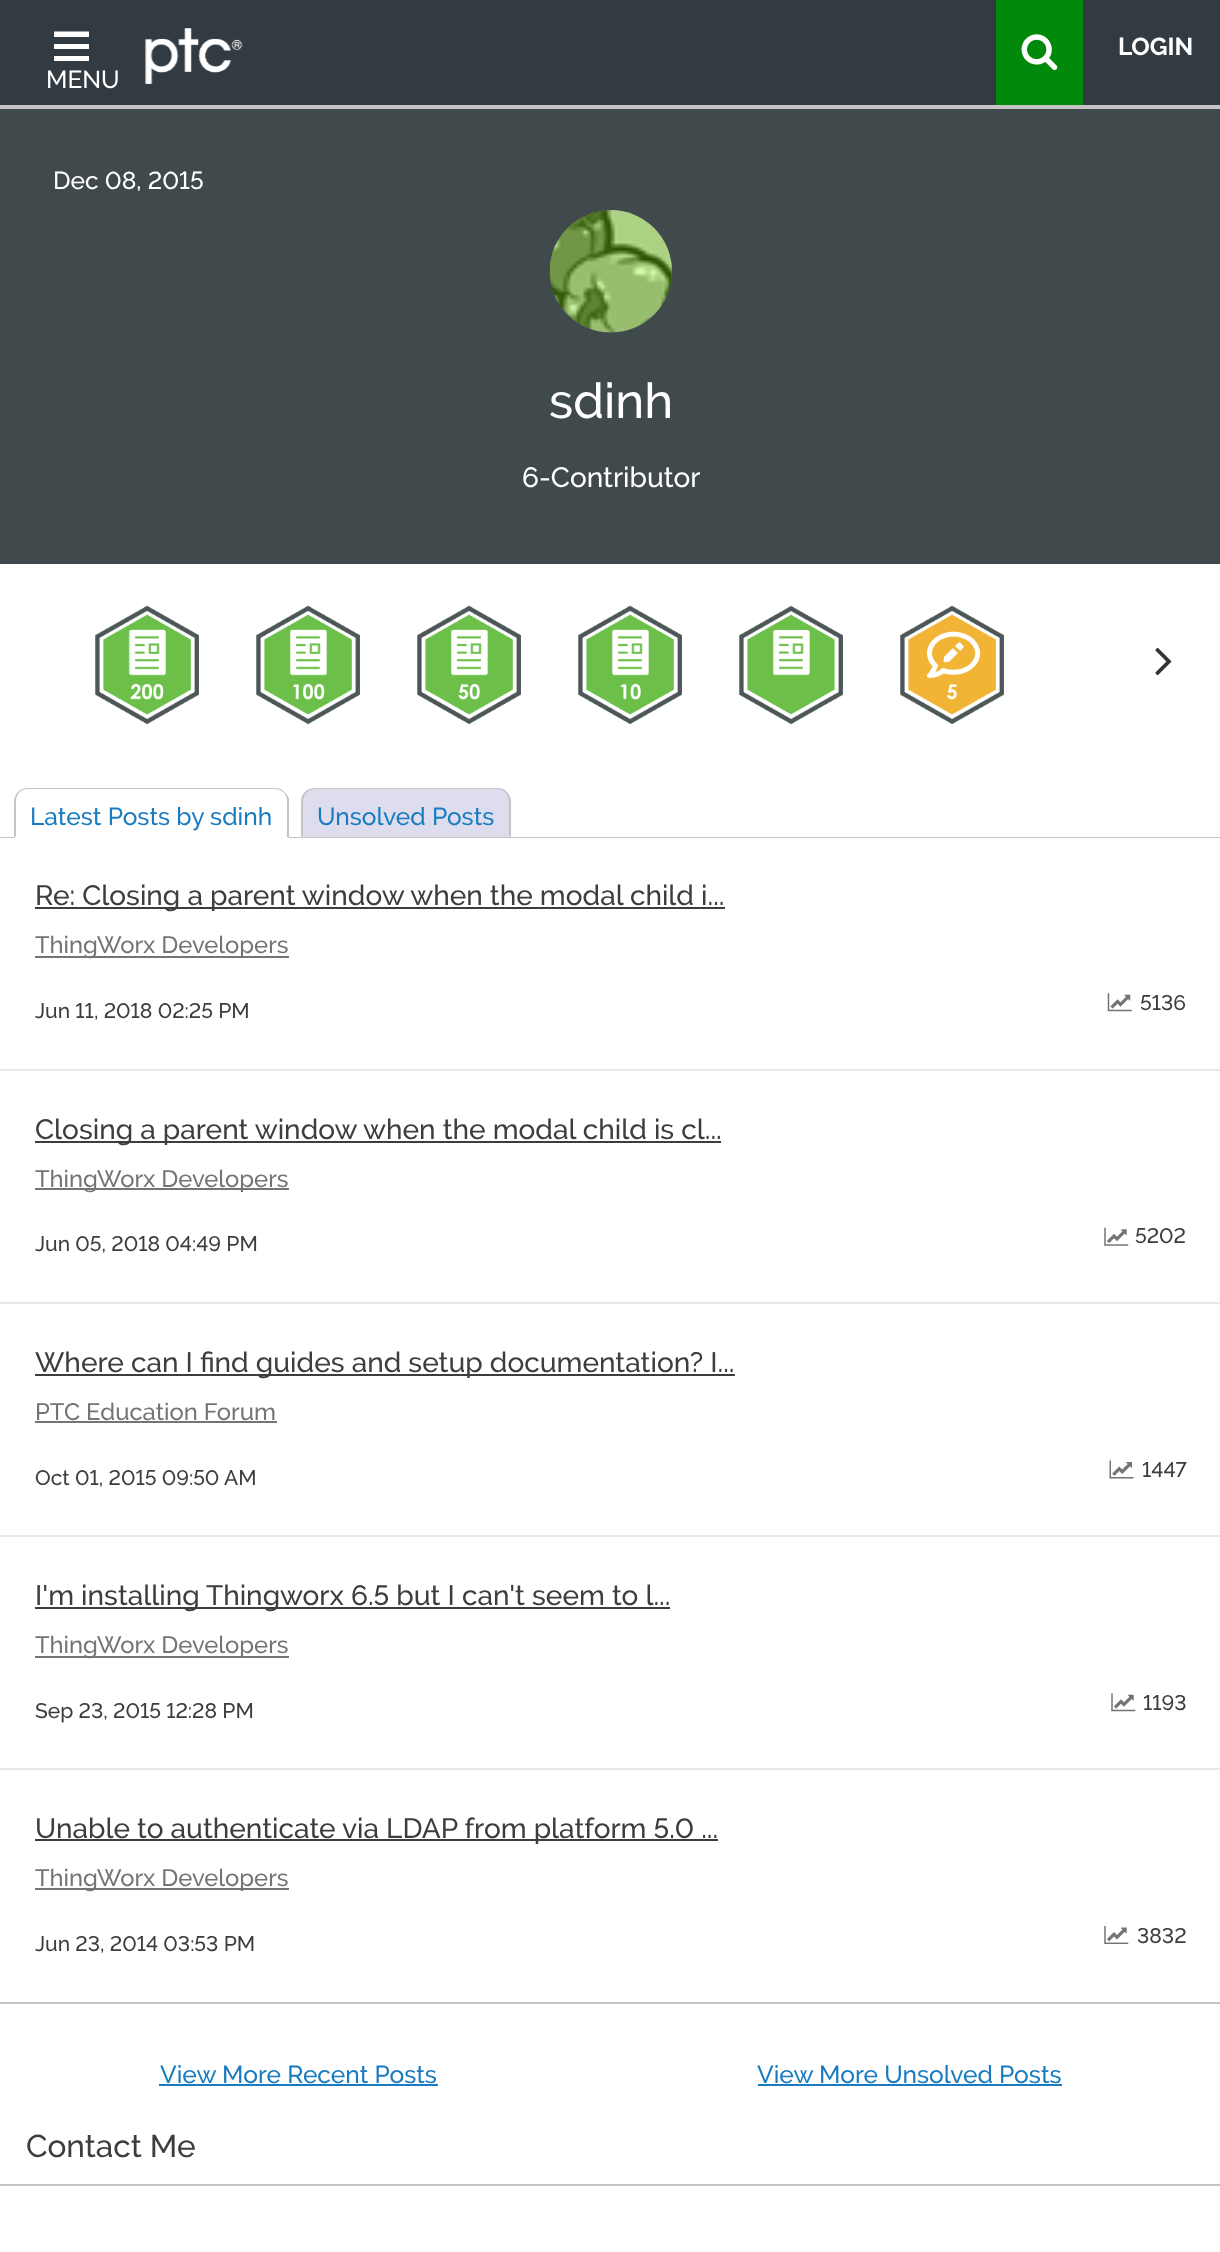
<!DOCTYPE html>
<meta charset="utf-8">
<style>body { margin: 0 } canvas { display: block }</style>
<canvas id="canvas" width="1220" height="2252"></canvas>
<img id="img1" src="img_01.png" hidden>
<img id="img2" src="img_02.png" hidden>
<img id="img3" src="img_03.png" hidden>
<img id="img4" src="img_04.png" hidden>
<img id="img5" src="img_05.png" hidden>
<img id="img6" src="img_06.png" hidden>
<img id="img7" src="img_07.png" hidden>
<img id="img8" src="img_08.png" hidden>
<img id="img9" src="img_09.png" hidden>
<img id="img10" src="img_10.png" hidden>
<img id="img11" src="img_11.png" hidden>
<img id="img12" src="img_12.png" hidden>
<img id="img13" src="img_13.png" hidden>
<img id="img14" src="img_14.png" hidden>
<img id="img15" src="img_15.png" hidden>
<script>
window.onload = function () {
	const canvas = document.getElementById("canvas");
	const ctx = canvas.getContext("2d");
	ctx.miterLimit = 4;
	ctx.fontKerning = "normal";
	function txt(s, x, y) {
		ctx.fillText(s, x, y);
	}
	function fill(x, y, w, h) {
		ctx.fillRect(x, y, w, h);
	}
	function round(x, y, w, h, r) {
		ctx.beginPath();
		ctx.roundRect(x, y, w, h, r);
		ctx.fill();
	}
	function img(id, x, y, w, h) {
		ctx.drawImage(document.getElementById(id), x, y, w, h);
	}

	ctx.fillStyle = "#FFFFFF";
	fill(0, 0, 1220, 2252);
	ctx.fillStyle = "#323B42";
	fill(0, 0, 1220, 105);
	ctx.fillStyle = "#00890B";
	fill(996, 0, 87, 105);
	img("img1", 1021, 34, 37, 37);
	ctx.fillStyle = "#FFFFFF";
	ctx.beginPath();
	ctx.moveTo(54, 31.5);
	ctx.lineTo(89, 31.5);
	ctx.lineTo(89, 37);
	ctx.lineTo(54, 37);
	ctx.closePath();
	ctx.moveTo(54, 44);
	ctx.lineTo(89, 44);
	ctx.lineTo(89, 49);
	ctx.lineTo(54, 49);
	ctx.closePath();
	ctx.moveTo(54, 56);
	ctx.lineTo(89, 56);
	ctx.lineTo(89, 61);
	ctx.lineTo(54, 61);
	ctx.closePath();
	ctx.fill("evenodd");
	img("img2", 145, 28, 98, 56);
	ctx.fillStyle = "#C4C4C4";
	fill(0, 105, 1220, 4);
	ctx.fillStyle = "#40494C";
	fill(0, 109, 1220, 455);
	ctx.fillStyle = "#5D5D5D";
	round(550, 210, 122, 123, 61);
	ctx.save();
	ctx.beginPath();
	ctx.rect(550, 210, 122, 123);
	ctx.clip();
	ctx.beginPath();
	ctx.moveTo(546, 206);
	ctx.lineTo(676, 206);
	ctx.lineTo(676, 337);
	ctx.lineTo(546, 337);
	ctx.closePath();
	ctx.moveTo(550, 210);
	ctx.lineTo(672, 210);
	ctx.lineTo(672, 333);
	ctx.lineTo(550, 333);
	ctx.closePath();
	ctx.clip("evenodd");
	ctx.fillStyle = "#C4C4C4";
	ctx.filter = "blur(1px)";
	ctx.beginPath();
	ctx.rect(550, 210, 122, 123);
	ctx.fill();
	ctx.filter = "none";
	ctx.restore();
	img("img3", 549, 210, 123, 123);
	img("img4", 95, 605, 104, 120);
	img("img5", 256, 605, 104, 120);
	img("img6", 417, 605, 104, 120);
	img("img7", 578, 605, 104, 120);
	img("img8", 739, 605, 104, 120);
	img("img9", 900, 605, 104, 120);
	img("img10", 1155, 647, 17, 29);
	ctx.fillStyle = "#C4C4C4";
	fill(0, 837, 1220, 1);
	ctx.fillStyle = "#FFFFFF";
	ctx.beginPath();
	ctx.roundRect(14, 788, 275, 50, [14, 14, 0, 0]);
	ctx.fill();
	ctx.fillStyle = "#C4C4C4";
	ctx.beginPath();
	ctx.moveTo(28, 788);
	ctx.bezierCurveTo(24, 788, 21, 789, 18, 792);
	ctx.lineTo(19, 793);
	ctx.bezierCurveTo(22, 790, 24, 789, 28, 789);
	ctx.lineTo(275, 789);
	ctx.bezierCurveTo(278, 789, 281, 790, 284, 793);
	ctx.lineTo(284, 792);
	ctx.bezierCurveTo(282, 789, 278, 788, 275, 788);
	ctx.closePath();
	ctx.fill();
	ctx.beginPath();
	ctx.moveTo(284, 792);
	ctx.bezierCurveTo(287, 794, 288, 796, 289, 799);
	ctx.lineTo(289, 838);
	ctx.lineTo(286, 836);
	ctx.lineTo(287, 836);
	ctx.lineTo(287, 802);
	ctx.bezierCurveTo(287, 798, 286, 795, 284, 793);
	ctx.closePath();
	ctx.fill();
	ctx.beginPath();
	ctx.moveTo(14, 802);
	ctx.lineTo(14, 838);
	ctx.lineTo(16, 836);
	ctx.lineTo(16, 802);
	ctx.bezierCurveTo(16, 798, 17, 795, 19, 793);
	ctx.lineTo(18, 792);
	ctx.bezierCurveTo(16, 794, 14, 798, 14, 802);
	ctx.closePath();
	ctx.fill();
	ctx.fillStyle = "#DDDDEE";
	ctx.beginPath();
	ctx.roundRect(301, 788, 124, 49, [14, 0, 0, 0]);
	ctx.fill();
	ctx.fillStyle = "#C4C4C4";
	ctx.beginPath();
	ctx.moveTo(315, 788);
	ctx.lineTo(425, 788);
	ctx.lineTo(425, 836);
	ctx.lineTo(301, 836);
	ctx.lineTo(301, 802);
	ctx.bezierCurveTo(301, 794, 307, 788, 315, 788);
	ctx.closePath();
	ctx.moveTo(315, 789);
	ctx.lineTo(425, 789);
	ctx.lineTo(425, 836);
	ctx.lineTo(303, 836);
	ctx.lineTo(303, 802);
	ctx.bezierCurveTo(303, 795, 308, 789, 315, 789);
	ctx.closePath();
	ctx.fill("evenodd");
	ctx.fillStyle = "#DDDDEE";
	ctx.beginPath();
	ctx.roundRect(425, 788, 86, 49, [0, 14, 0, 0]);
	ctx.fill();
	ctx.fillStyle = "#C4C4C4";
	ctx.beginPath();
	ctx.moveTo(425, 788);
	ctx.lineTo(497, 788);
	ctx.bezierCurveTo(505, 788, 511, 794, 511, 802);
	ctx.lineTo(511, 836);
	ctx.lineTo(425, 836);
	ctx.closePath();
	ctx.moveTo(425, 789);
	ctx.lineTo(497, 789);
	ctx.bezierCurveTo(504, 789, 509, 795, 509, 802);
	ctx.lineTo(509, 836);
	ctx.lineTo(425, 836);
	ctx.closePath();
	ctx.fill("evenodd");
	fill(0, 2002, 1220, 2);
	ctx.fillStyle = "#3D3D3D";
	fill(35, 907, 690, 2);
	ctx.fillStyle = "#747474";
	fill(35, 956, 254, 2);
	img("img11", 1107, 993, 25, 19);
	ctx.fillStyle = "#E8E8E8";
	fill(0, 1069, 1220, 2);
	ctx.fillStyle = "#3D3D3D";
	fill(35, 1141, 686, 2);
	ctx.fillStyle = "#747474";
	fill(35, 1188, 254, 2);
	img("img12", 1104, 1227, 25, 19);
	ctx.fillStyle = "#E8E8E8";
	fill(0, 1302, 1220, 2);
	ctx.fillStyle = "#3D3D3D";
	fill(35, 1374, 700, 2);
	ctx.fillStyle = "#747474";
	fill(35, 1421, 242, 2);
	img("img13", 1109, 1460, 25, 19);
	ctx.fillStyle = "#E8E8E8";
	fill(0, 1535, 1220, 2);
	ctx.fillStyle = "#3D3D3D";
	fill(35, 1607, 635, 2);
	ctx.fillStyle = "#747474";
	fill(35, 1656, 254, 2);
	img("img14", 1111, 1693, 25, 19);
	ctx.fillStyle = "#E8E8E8";
	fill(0, 1768, 1220, 2);
	ctx.fillStyle = "#3D3D3D";
	fill(35, 1839, 683, 2);
	ctx.fillStyle = "#747474";
	fill(35, 1888, 254, 2);
	img("img15", 1104, 1926, 25, 18);
	ctx.fillStyle = "#197BC0";
	fill(159, 2084, 279, 2);
	fill(758, 2084, 304, 2);
	ctx.fillStyle = "#C4C4C4";
	fill(0, 2184, 1220, 2);
	ctx.font = "bold 24.5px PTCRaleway";
	ctx.fillStyle = "#FFFFFF";
	txt("LOGIN", 1118, 55);
	ctx.font = "500 24.5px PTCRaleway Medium";
	txt("MENU", 46, 88);
	txt("Dec 08, 2015", 53, 189);
	ctx.font = "500 49px PTCRaleway Medium";
	txt("sdinh", 549, 418);
	ctx.font = "500 28px PTCRaleway Medium";
	txt("6-Contributor", 522, 487);
	ctx.font = "500 24.5px PTCRaleway Medium";
	ctx.fillStyle = "#197BC0";
	txt("Latest Posts by sdinh", 30, 825);
	txt("Unsolved Posts", 317, 825);
	ctx.font = "500 28px PTCRaleway Medium";
	ctx.fillStyle = "#3D3D3D";
	txt("Re: Closing a parent window when the modal child i...", 35, 905);
	ctx.font = "500 23.75px PTCRaleway Medium";
	ctx.fillStyle = "#747474";
	txt("ThingWorx Developers", 35, 953);
	ctx.font = "500 21px PTCRaleway Medium";
	ctx.fillStyle = "#3D3D3D";
	txt("Jun 11, 2018 02:25 PM", 35, 1018);
	txt("5136", 1140, 1010);
	ctx.font = "500 28px PTCRaleway Medium";
	txt("Closing a parent window when the modal child is cl...", 35, 1139);
	ctx.font = "500 23.75px PTCRaleway Medium";
	ctx.fillStyle = "#747474";
	txt("ThingWorx Developers", 35, 1187);
	ctx.font = "500 21px PTCRaleway Medium";
	ctx.fillStyle = "#3D3D3D";
	txt("Jun 05, 2018 04:49 PM", 35, 1251);
	txt("5202", 1135, 1243);
	ctx.font = "500 28px PTCRaleway Medium";
	txt("Where can I find guides and setup documentation? I...", 35, 1372);
	ctx.font = "500 23.75px PTCRaleway Medium";
	ctx.fillStyle = "#747474";
	txt("PTC Education Forum", 35, 1420);
	ctx.font = "500 21px PTCRaleway Medium";
	ctx.fillStyle = "#3D3D3D";
	txt("Oct 01, 2015 09:50 AM", 35, 1485);
	txt("1447", 1142, 1477);
	ctx.font = "500 28px PTCRaleway Medium";
	txt("I'm installing Thingworx 6.5 but I can't seem to l...", 35, 1605);
	ctx.font = "500 23.75px PTCRaleway Medium";
	ctx.fillStyle = "#747474";
	txt("ThingWorx Developers", 35, 1653);
	ctx.font = "500 21px PTCRaleway Medium";
	ctx.fillStyle = "#3D3D3D";
	txt("Sep 23, 2015 12:28 PM", 35, 1718);
	txt("1193", 1143, 1710);
	ctx.font = "500 28px PTCRaleway Medium";
	txt("Unable to authenticate via LDAP from platform 5.0 ...", 35, 1838);
	ctx.font = "500 23.75px PTCRaleway Medium";
	ctx.fillStyle = "#747474";
	txt("ThingWorx Developers", 35, 1886);
	ctx.font = "500 21px PTCRaleway Medium";
	ctx.fillStyle = "#3D3D3D";
	txt("Jun 23, 2014 03:53 PM", 35, 1951);
	txt("3832", 1137, 1943);
	ctx.font = "500 24.5px PTCRaleway Medium";
	ctx.fillStyle = "#197BC0";
	txt("View More Recent Posts", 160, 2083);
	txt("View More Unsolved Posts", 757, 2083);
	ctx.font = "500 31.5px PTCRaleway Medium";
	ctx.fillStyle = "#3D3D3D";
	txt("Contact Me", 26, 2157);
};
</script>
